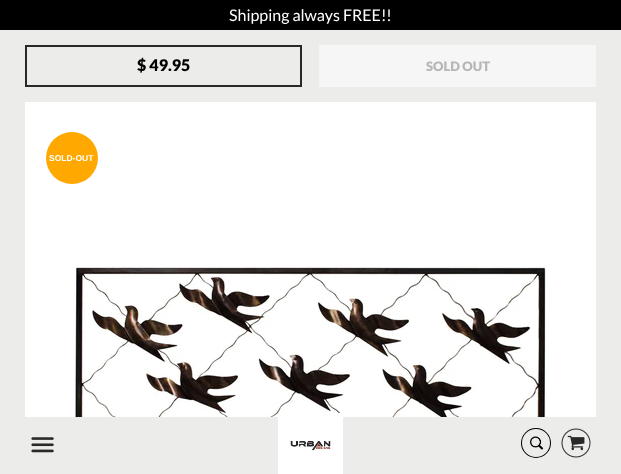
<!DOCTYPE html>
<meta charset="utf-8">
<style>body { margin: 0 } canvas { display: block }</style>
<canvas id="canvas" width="621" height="474"></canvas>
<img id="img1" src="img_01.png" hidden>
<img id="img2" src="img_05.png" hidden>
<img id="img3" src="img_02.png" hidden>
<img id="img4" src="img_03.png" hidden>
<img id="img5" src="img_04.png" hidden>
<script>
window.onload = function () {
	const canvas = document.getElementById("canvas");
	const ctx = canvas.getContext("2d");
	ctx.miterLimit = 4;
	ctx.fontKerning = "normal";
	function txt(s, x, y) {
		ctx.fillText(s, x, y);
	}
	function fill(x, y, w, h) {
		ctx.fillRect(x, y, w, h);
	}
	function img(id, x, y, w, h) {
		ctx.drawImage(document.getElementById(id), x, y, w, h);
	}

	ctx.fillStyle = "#ECECEB";
	fill(0, 0, 621, 474);
	ctx.fillStyle = "#000000";
	fill(0, 0, 621, 30);
	img("img1", 31, 437, 23, 16);
	ctx.fillStyle = "#FFFFFF";
	fill(25, 102, 571, 315);
	img("img2", 74, 266, 472, 151);
	img("img3", 278, 413, 65, 61);
	img("img4", 521, 428, 30, 30);
	img("img5", 561, 428, 30, 30);
	ctx.strokeStyle = "#292929";
	ctx.lineWidth = 2;
	ctx.strokeRect(26, 46, 275, 40);
	ctx.fillStyle = "#F6F6F6";
	fill(319, 45, 277, 42);
	ctx.fillStyle = "#FFA900";
	ctx.beginPath();
	ctx.arc(72, 158, 26, 0, Math.PI * 2);
	ctx.fill();
	ctx.font = "16px Lato";
	ctx.fillStyle = "#FFFFFF";
	txt("Shipping always FREE!!", 229, 21);
	ctx.font = "900 16px Lato";
	ctx.fillStyle = "#000000";
	txt("$ 49.95", 137, 71);
	ctx.font = "900 13px Lato";
	ctx.fillStyle = "#B6B6B6";
	txt("SOLD OUT", 426, 71);
	ctx.font = "bold 8.5px Liberation Sans";
	ctx.fillStyle = "#FFFFFF";
	txt("SOLD-OUT", 49, 161);
};
</script>
